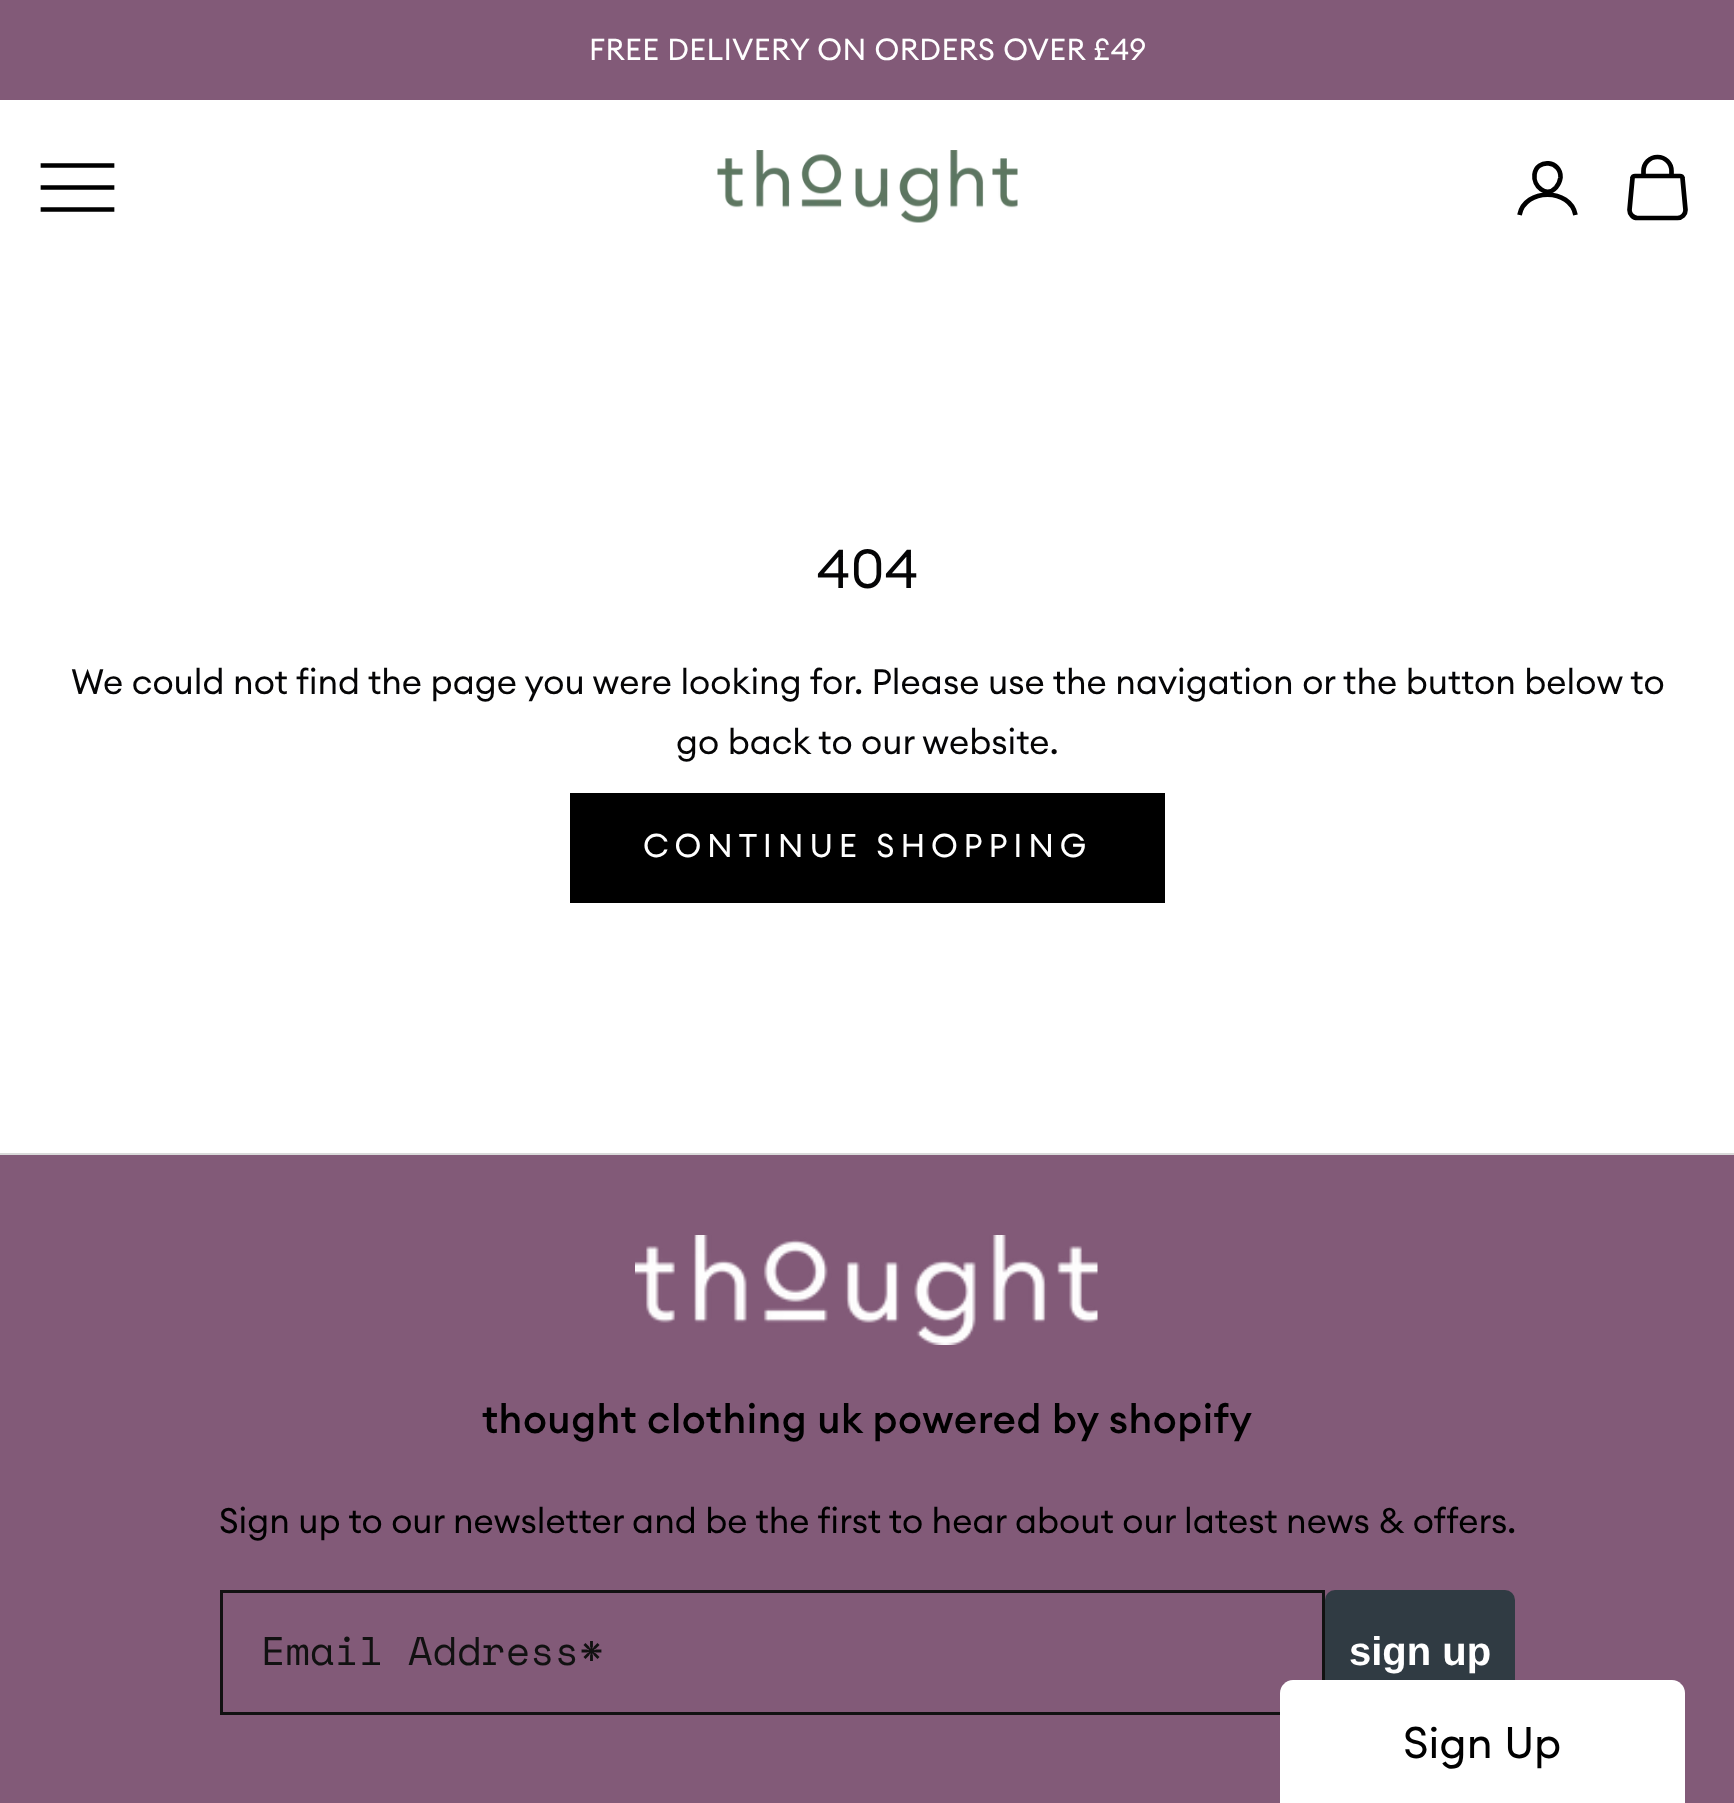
<!DOCTYPE html>
<meta charset="utf-8">
<style>body { margin: 0 } canvas { display: block }</style>
<canvas id="canvas" width="1734" height="1803"></canvas>
<img id="img1" src="img_01.png" hidden>
<img id="img2" src="img_02.png" hidden>
<script>
window.onload = function () {
	const canvas = document.getElementById("canvas");
	const ctx = canvas.getContext("2d");
	ctx.miterLimit = 4;
	ctx.fontKerning = "normal";
	function txt(s, x, y) {
		ctx.fillText(s, x, y);
	}
	function fill(x, y, w, h) {
		ctx.fillRect(x, y, w, h);
	}
	function round(x, y, w, h, r) {
		ctx.beginPath();
		ctx.roundRect(x, y, w, h, r);
		ctx.fill();
	}
	function img(id, x, y, w, h) {
		ctx.drawImage(document.getElementById(id), x, y, w, h);
	}

	ctx.fillStyle = "#FFFFFF";
	fill(0, 0, 1734, 1803);
	ctx.fillStyle = "#825A78";
	fill(0, 0, 1734, 100);
	ctx.beginPath();
	ctx.moveTo(43, 209.5);
	ctx.lineTo(112, 209.5);
	ctx.moveTo(43, 187.5);
	ctx.lineTo(112, 187.5);
	ctx.moveTo(43, 165.5);
	ctx.lineTo(112, 165.5);
	ctx.strokeStyle = "#000000";
	ctx.lineWidth = 4.7;
	ctx.lineCap = "square";
	ctx.stroke();
	img("img1", 717, 150, 301, 73);
	ctx.beginPath();
	ctx.moveTo(1560.5, 177.5);
	ctx.bezierCurveTo(1560, 181, 1558.5, 184.5, 1556, 187.5);
	ctx.bezierCurveTo(1546.5, 198, 1533, 186.5, 1534.5, 174.5);
	ctx.bezierCurveTo(1536.5, 158, 1561.5, 160.5, 1560.5, 177.5);
	ctx.closePath();
	ctx.lineCap = "round";
	ctx.lineJoin = "round";
	ctx.stroke();
	ctx.beginPath();
	ctx.moveTo(1519.5, 215);
	ctx.bezierCurveTo(1524.5, 188, 1570.5, 188, 1575.5, 215);
	ctx.lineCap = "butt";
	ctx.lineJoin = "miter";
	ctx.stroke();
	ctx.beginPath();
	ctx.moveTo(1635, 176);
	ctx.bezierCurveTo(1633.5, 176, 1632.5, 177, 1632.5, 178);
	ctx.lineTo(1629.5, 210);
	ctx.bezierCurveTo(1629.5, 214, 1633, 218, 1637.5, 218);
	ctx.lineTo(1677.5, 218);
	ctx.bezierCurveTo(1682, 218, 1685.5, 214.5, 1685.5, 210);
	ctx.lineTo(1682.5, 178);
	ctx.bezierCurveTo(1682.5, 177, 1681.5, 176, 1680, 176);
	ctx.closePath();
	ctx.moveTo(1643.5, 176);
	ctx.lineTo(1643.5, 171);
	ctx.bezierCurveTo(1643.5, 163.5, 1649.5, 157, 1657.5, 157);
	ctx.bezierCurveTo(1665.5, 157, 1671.5, 163.5, 1671.5, 171);
	ctx.lineTo(1671.5, 176);
	ctx.lineCap = "round";
	ctx.lineJoin = "round";
	ctx.stroke();
	ctx.fillStyle = "#000000";
	ctx.beginPath();
	ctx.rect(571.5, 794.5, 592, 107);
	ctx.fill();
	ctx.lineWidth = 3;
	ctx.lineJoin = "miter";
	ctx.stroke();
	ctx.fillStyle = "#D9D9D9";
	fill(0, 1153, 1734, 2);
	ctx.fillStyle = "#825A78";
	fill(0, 1155, 1734, 648);
	img("img2", 635, 1235, 463, 110);
	ctx.strokeStyle = "#111111";
	ctx.strokeRect(221.5, 1591.5, 1102, 122);
	ctx.fillStyle = "#303B43";
	round(1325, 1590, 190, 125, 10);
	ctx.fillStyle = "#FFFFFF";
	ctx.beginPath();
	ctx.moveTo(1293, 1680);
	ctx.lineTo(1672, 1680);
	ctx.bezierCurveTo(1679, 1680, 1685, 1686, 1685, 1693);
	ctx.lineTo(1685, 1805);
	ctx.lineTo(1280, 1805);
	ctx.lineTo(1280, 1693);
	ctx.bezierCurveTo(1280, 1686, 1286, 1680, 1293, 1680);
	ctx.closePath();
	ctx.fill();
	ctx.letterSpacing = "0.5px";
	ctx.font = "30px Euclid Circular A";
	txt("FREE DELIVERY ON ORDERS OVER £49", 589, 60);
	ctx.font = "54px Euclid Circular A";
	ctx.fillStyle = "#050506";
	txt("404", 817, 588);
	ctx.letterSpacing = "0px";
	ctx.font = "35px Euclid Circular A";
	txt("We could not find the page you were looking for. Please use the navigation or the button below to", 71, 694);
	txt("go back to our website.", 676, 754);
	ctx.letterSpacing = "5.8px";
	ctx.font = "32.5px Euclid Circular A";
	ctx.fillStyle = "#FFFFFF";
	txt("CONTINUE SHOPPING", 643, 857);
	ctx.letterSpacing = "0.5px";
	ctx.font = "500 40px Euclid Circular A";
	ctx.fillStyle = "#000000";
	txt("thought clothing uk powered by shopify", 482, 1433);
	ctx.letterSpacing = "0px";
	ctx.font = "35px Euclid Circular A";
	txt("Sign up to our newsletter and be the first to hear about our latest news & offers.", 219, 1533);
	ctx.font = "40px Space Mono";
	ctx.fillStyle = "#111111";
	txt("Email Address*", 261, 1665);
	ctx.font = "bold 40px Liberation Sans";
	ctx.fillStyle = "#FFFFFF";
	txt("sign up", 1349, 1665);
	ctx.font = "45px Sofia";
	ctx.fillStyle = "#000000";
	txt("Sign Up", 1403, 1758);
};
</script>
